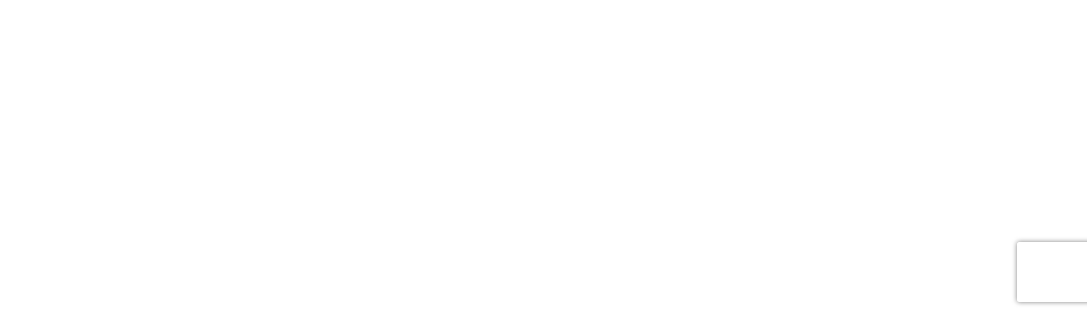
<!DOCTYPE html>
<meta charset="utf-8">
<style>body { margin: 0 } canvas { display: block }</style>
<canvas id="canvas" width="1087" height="316"></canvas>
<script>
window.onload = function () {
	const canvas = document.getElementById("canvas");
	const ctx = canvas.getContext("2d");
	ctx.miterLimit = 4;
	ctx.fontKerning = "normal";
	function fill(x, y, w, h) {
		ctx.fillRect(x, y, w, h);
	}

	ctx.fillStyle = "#FFFFFF";
	fill(0, 0, 1087, 316);
	ctx.save();
	ctx.beginPath();
	ctx.moveTo(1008, 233);
	ctx.lineTo(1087, 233);
	ctx.lineTo(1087, 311);
	ctx.lineTo(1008, 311);
	ctx.closePath();
	ctx.moveTo(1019, 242);
	ctx.lineTo(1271, 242);
	ctx.bezierCurveTo(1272, 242, 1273, 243, 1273, 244);
	ctx.lineTo(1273, 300);
	ctx.bezierCurveTo(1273, 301, 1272, 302, 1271, 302);
	ctx.lineTo(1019, 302);
	ctx.bezierCurveTo(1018, 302, 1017, 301, 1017, 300);
	ctx.lineTo(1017, 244);
	ctx.bezierCurveTo(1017, 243, 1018, 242, 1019, 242);
	ctx.closePath();
	ctx.clip("evenodd");
	ctx.fillStyle = "#808080";
	ctx.filter = "blur(2.5px)";
	ctx.beginPath();
	ctx.roundRect(1017, 242, 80, 60, 2);
	ctx.fill();
	ctx.filter = "none";
	ctx.restore();
};
</script>
